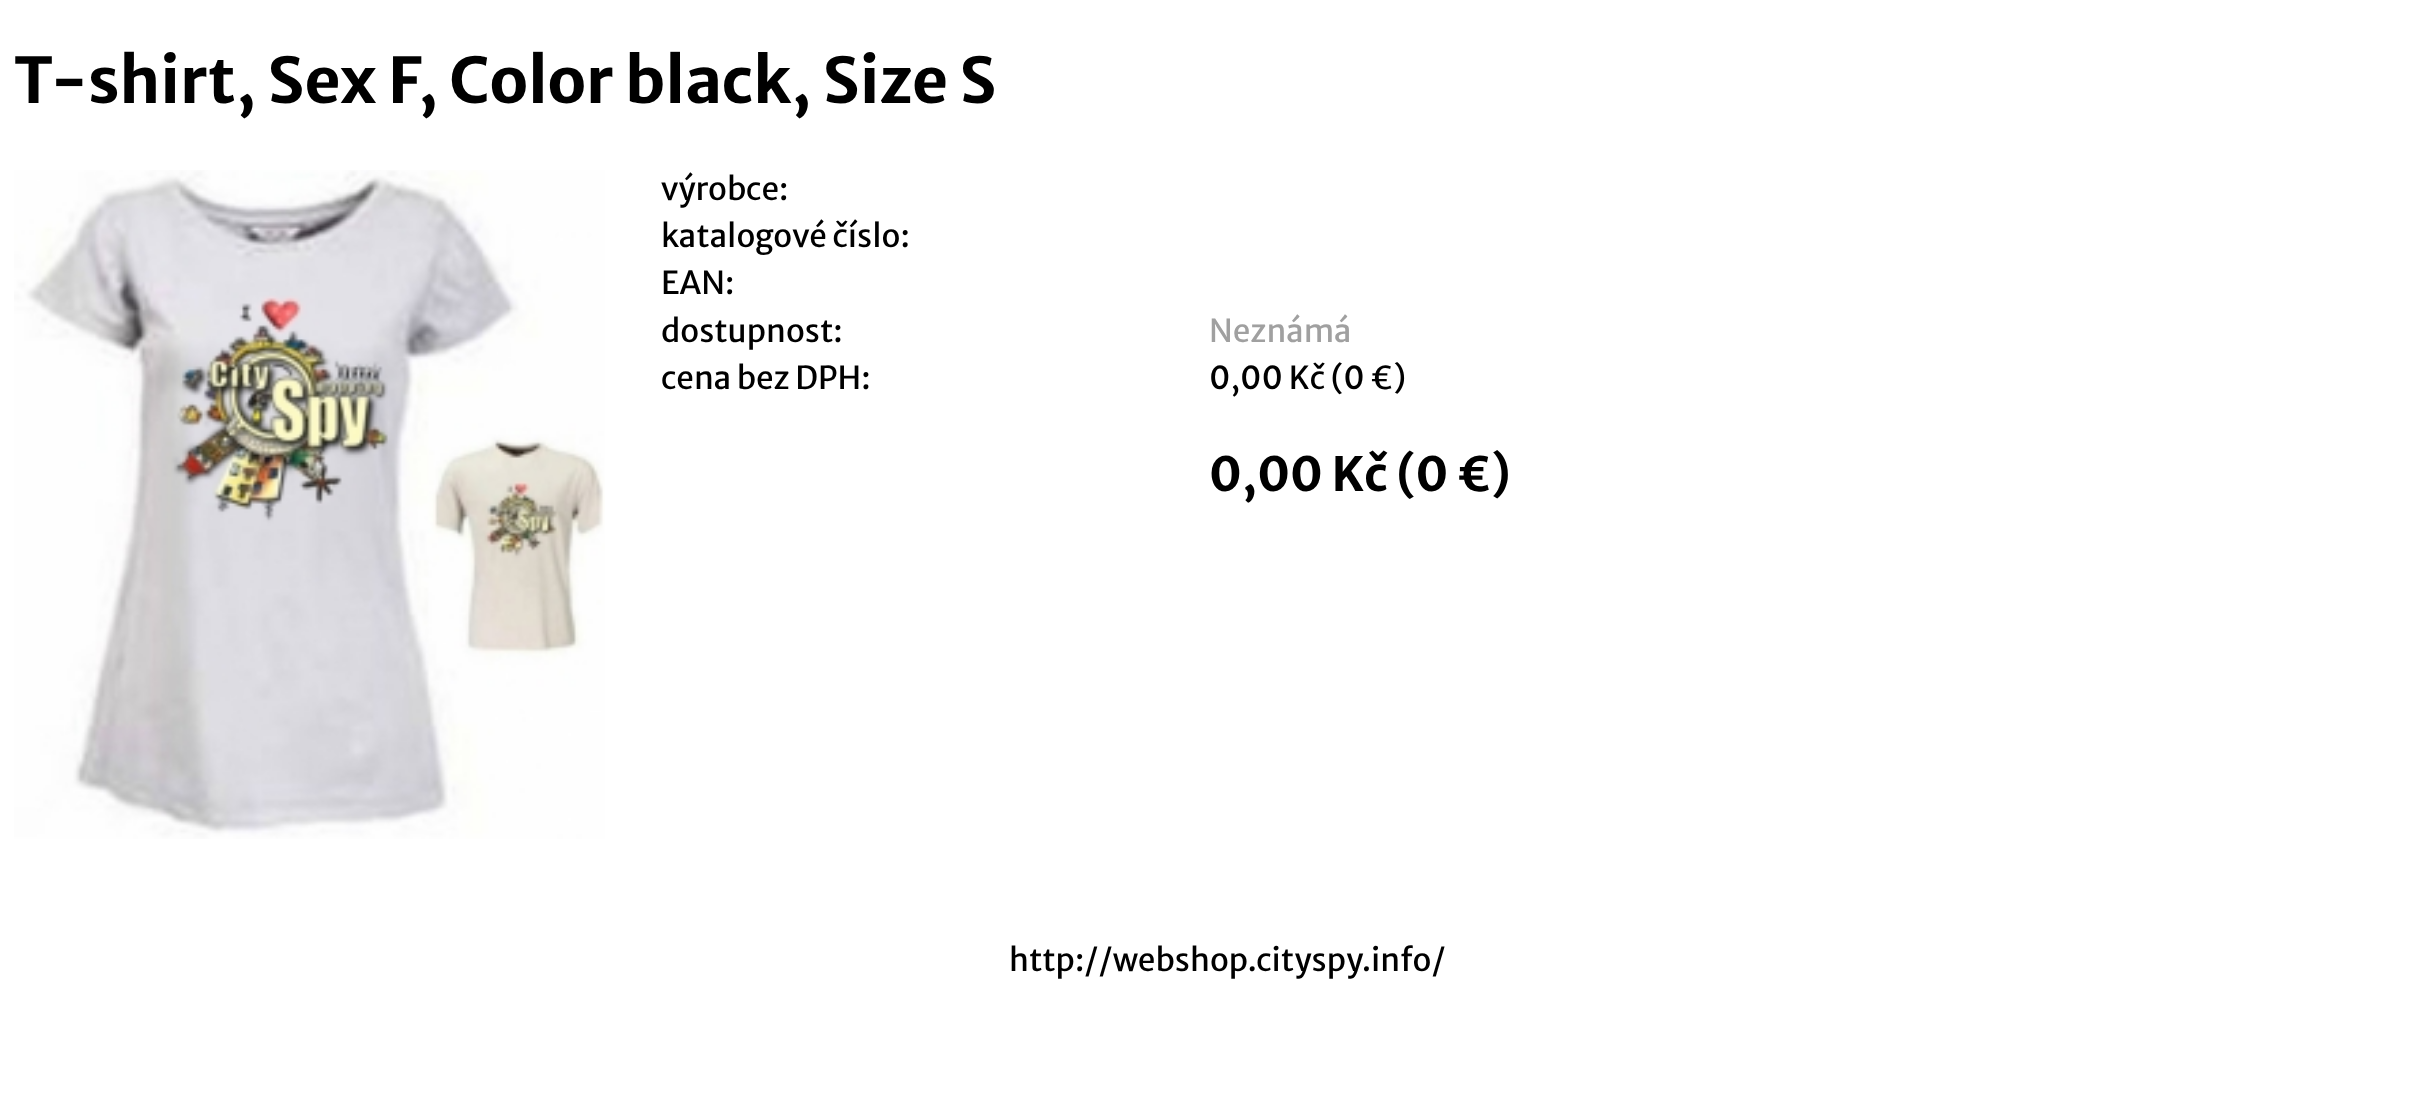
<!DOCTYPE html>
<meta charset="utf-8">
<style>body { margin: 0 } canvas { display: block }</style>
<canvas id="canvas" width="2427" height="1099"></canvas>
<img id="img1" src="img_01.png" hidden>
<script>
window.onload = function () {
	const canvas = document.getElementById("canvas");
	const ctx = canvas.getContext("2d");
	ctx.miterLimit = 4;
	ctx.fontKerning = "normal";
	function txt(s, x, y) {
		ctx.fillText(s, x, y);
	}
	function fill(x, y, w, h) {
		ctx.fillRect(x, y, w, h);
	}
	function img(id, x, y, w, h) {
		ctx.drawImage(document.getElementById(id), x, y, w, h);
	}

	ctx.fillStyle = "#FFFFFF";
	fill(0, 0, 2427, 1099);
	img("img1", 14, 170, 591, 669);
	ctx.font = "bold 63px Merriweather Sans";
	ctx.fillStyle = "#000000";
	txt("T-shirt, Sex F, Color black, Size S", 14, 103);
	ctx.font = "31.5px Merriweather Sans";
	txt("výrobce:", 661, 200);
	txt("katalogové číslo:", 661, 247);
	txt("EAN:", 661, 294);
	txt("dostupnost:", 661, 342);
	ctx.fillStyle = "#A0A0A0";
	txt("Neznámá", 1209, 342);
	ctx.fillStyle = "#000000";
	txt("cena bez DPH:", 661, 389);
	txt("0,00 Kč (0 €)", 1209, 389);
	ctx.font = "bold 47.25px Merriweather Sans";
	txt("0,00 Kč (0 €)", 1209, 491);
	ctx.font = "31.5px Merriweather Sans";
	txt("http://webshop.cityspy.info/", 1009, 971);
};
</script>
